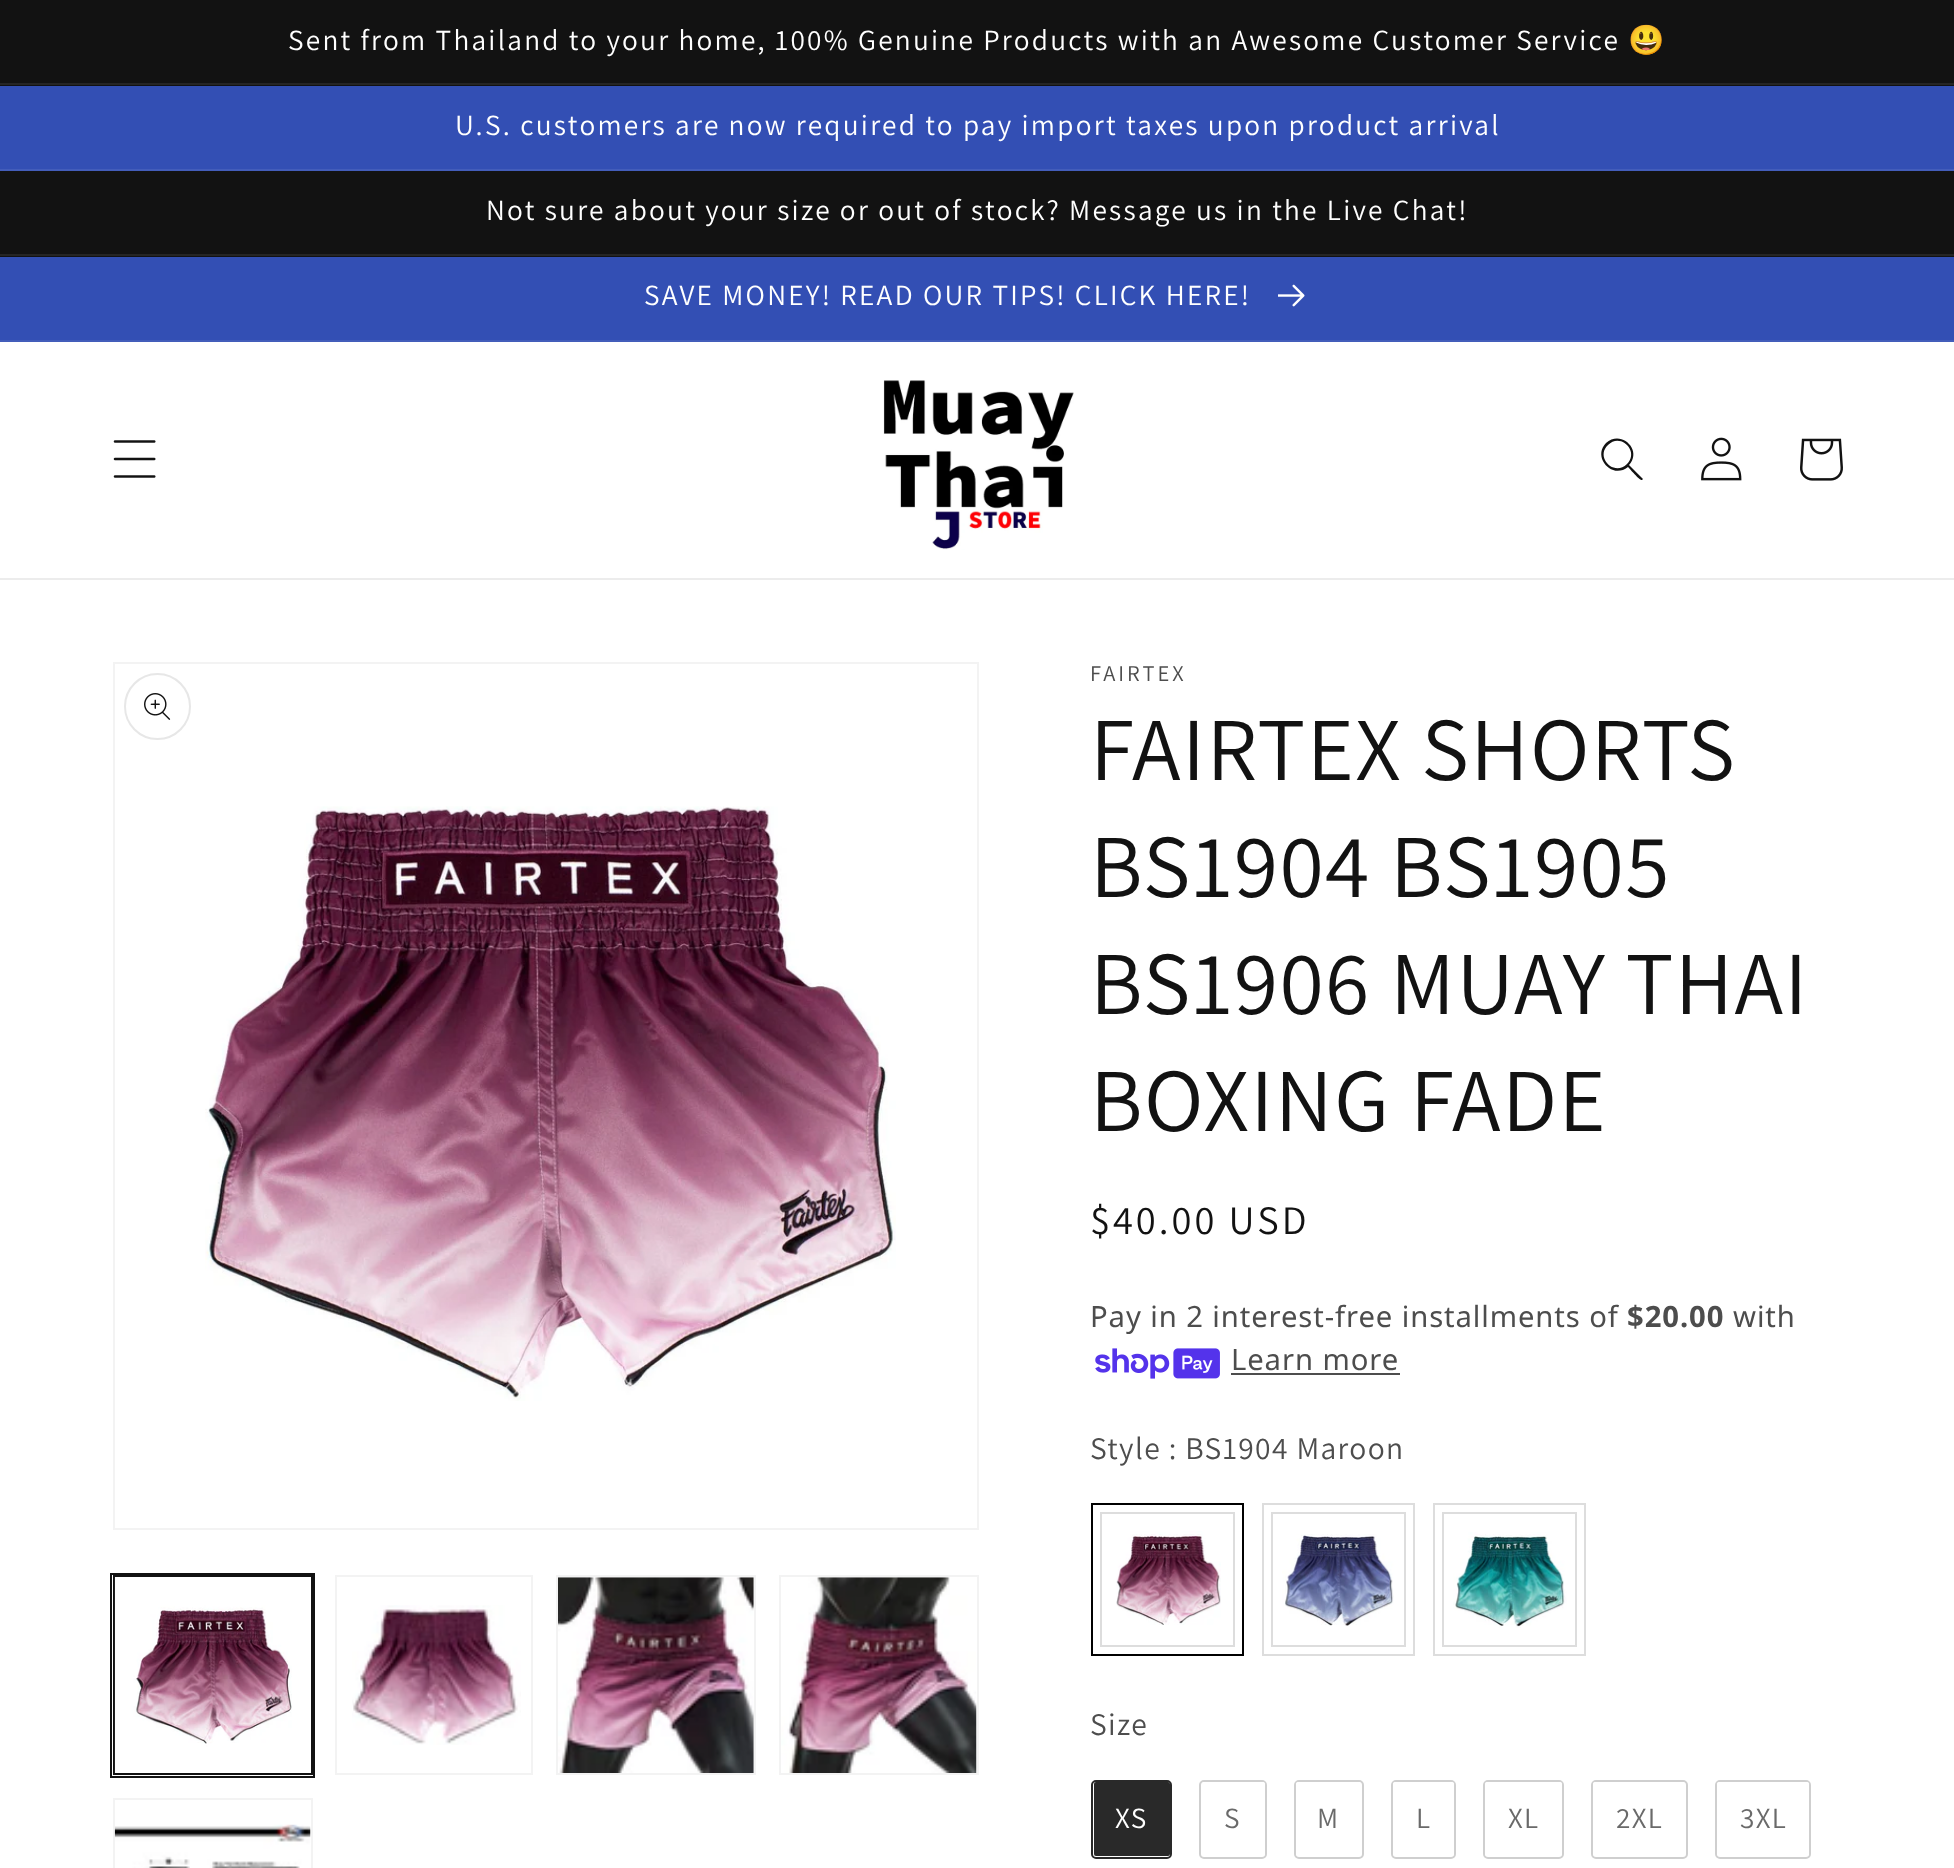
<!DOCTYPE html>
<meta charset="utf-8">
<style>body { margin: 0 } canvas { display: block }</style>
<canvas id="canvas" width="1954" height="1868"></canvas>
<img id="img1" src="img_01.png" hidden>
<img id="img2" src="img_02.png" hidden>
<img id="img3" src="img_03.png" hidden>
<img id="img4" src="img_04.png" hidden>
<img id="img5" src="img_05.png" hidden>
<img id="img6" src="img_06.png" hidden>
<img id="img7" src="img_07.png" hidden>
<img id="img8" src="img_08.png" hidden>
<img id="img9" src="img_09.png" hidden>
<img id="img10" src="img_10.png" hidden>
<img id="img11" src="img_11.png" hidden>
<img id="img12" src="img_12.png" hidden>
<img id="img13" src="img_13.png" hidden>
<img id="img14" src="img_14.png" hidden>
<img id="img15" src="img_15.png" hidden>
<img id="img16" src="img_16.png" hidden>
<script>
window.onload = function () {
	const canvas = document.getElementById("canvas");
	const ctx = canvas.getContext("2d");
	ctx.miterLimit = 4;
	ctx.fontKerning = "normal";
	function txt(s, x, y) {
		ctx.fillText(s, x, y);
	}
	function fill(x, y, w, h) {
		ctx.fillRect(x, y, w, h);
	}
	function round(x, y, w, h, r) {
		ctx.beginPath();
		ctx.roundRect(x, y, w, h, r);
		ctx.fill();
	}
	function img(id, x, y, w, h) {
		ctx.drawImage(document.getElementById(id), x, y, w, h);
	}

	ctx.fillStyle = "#FFFFFF";
	fill(0, 0, 1954, 1868);
	ctx.fillStyle = "#121212";
	fill(0, 0, 1954, 86);
	ctx.fillStyle = "#252525";
	fill(0, 83, 1954, 2);
	ctx.fillStyle = "#334FB4";
	fill(0, 86, 1954, 83);
	ctx.fillStyle = "#435DBA";
	fill(0, 169, 1954, 2);
	ctx.fillStyle = "#121212";
	fill(0, 171, 1954, 86);
	ctx.fillStyle = "#252525";
	fill(0, 254, 1954, 2);
	ctx.fillStyle = "#334FB4";
	fill(0, 257, 1954, 83);
	ctx.fillStyle = "#435DBA";
	fill(0, 340, 1954, 2);
	img("img1", 1278, 284, 27, 23);
	ctx.fillStyle = "#ECECEC";
	fill(0, 578, 1954, 2);
	img("img2", 113, 440, 43, 38);
	img("img3", 883, 380, 191, 170);
	ctx.fillStyle = "#121212";
	ctx.beginPath();
	ctx.moveTo(1627, 464);
	ctx.bezierCurveTo(1614, 477, 1595, 457, 1608, 445);
	ctx.bezierCurveTo(1620, 432, 1640, 451, 1627, 464);
	ctx.closePath();
	ctx.moveTo(1628, 467);
	ctx.bezierCurveTo(1612, 480, 1592, 457, 1606, 443);
	ctx.bezierCurveTo(1621, 429, 1643, 450, 1629, 465);
	ctx.lineTo(1643, 479);
	ctx.lineTo(1642, 480);
	ctx.bezierCurveTo(1640, 481, 1630, 469, 1628, 467);
	ctx.closePath();
	ctx.fill("evenodd");
	img("img4", 1701, 437, 41, 44);
	img("img5", 1800, 438, 43, 43);
	ctx.strokeStyle = "#F3F3F3";
	ctx.lineWidth = 2;
	ctx.strokeRect(114, 663, 864, 866);
	img("img6", 205, 806, 691, 595);
	ctx.beginPath();
	ctx.arc(157.5, 706.5, 32.5, 0, Math.PI * 2);
	ctx.strokeStyle = "#E7E7E7";
	ctx.stroke();
	img("img7", 144, 693, 27, 27);
	ctx.strokeStyle = "#121212";
	ctx.strokeRect(111, 1574, 203, 203);
	ctx.strokeRect(114, 1576, 198, 198);
	img("img8", 114, 1577, 178, 196);
	ctx.strokeStyle = "#F3F3F3";
	ctx.strokeRect(336, 1576, 196, 198);
	img("img9", 352, 1605, 169, 140);
	ctx.strokeRect(557, 1576, 198, 198);
	img("img10", 558, 1577, 196, 196);
	ctx.strokeRect(780, 1576, 198, 198);
	img("img11", 781, 1577, 196, 196);
	ctx.strokeRect(114, 1799, 198, 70);
	img("img12", 114, 1824, 197, 44);
	img("img13", 1095, 1348, 125, 31);
	ctx.fillStyle = "#4D4D4D";
	fill(1231, 1373, 169, 2);
	ctx.strokeStyle = "#000000";
	ctx.strokeRect(1092, 1504, 151, 151);
	img("img14", 1116, 1531, 105, 94);
	ctx.strokeStyle = "#DDDDDD";
	ctx.strokeRect(1101, 1513, 133, 133);
	ctx.strokeRect(1263, 1504, 151, 151);
	img("img15", 1282, 1534, 112, 92);
	ctx.strokeRect(1272, 1513, 133, 133);
	ctx.strokeRect(1434, 1504, 151, 151);
	img("img16", 1453, 1532, 114, 96);
	ctx.strokeRect(1443, 1513, 133, 133);
	ctx.beginPath();
	ctx.roundRect(1092, 1781, 79, 77, 4);
	ctx.strokeStyle = "#292929";
	ctx.stroke();
	ctx.fillStyle = "#292929";
	round(1094, 1782, 76, 74, 2);
	ctx.beginPath();
	ctx.roundRect(1200, 1781, 66, 77, 4);
	ctx.strokeStyle = "#CFCFCF";
	ctx.stroke();
	ctx.fillStyle = "#FFFFFF";
	round(1202, 1782, 63, 74, 2);
	ctx.beginPath();
	ctx.roundRect(1295, 1781, 68, 77, 4);
	ctx.stroke();
	round(1296, 1782, 65, 74, 2);
	ctx.beginPath();
	ctx.roundRect(1392, 1781, 63, 77, 4);
	ctx.stroke();
	round(1393, 1782, 61, 74, 2);
	ctx.beginPath();
	ctx.roundRect(1484, 1781, 79, 77, 4);
	ctx.stroke();
	round(1485, 1782, 77, 74, 2);
	ctx.beginPath();
	ctx.roundRect(1592, 1781, 95, 77, 4);
	ctx.stroke();
	round(1593, 1782, 92, 74, 2);
	ctx.beginPath();
	ctx.roundRect(1716, 1781, 94, 77, 4);
	ctx.stroke();
	round(1717, 1782, 92, 74, 2);
	ctx.letterSpacing = "2.25px";
	ctx.font = "29.25px Assistant";
	txt("Sent from Thailand to your home, 100% Genuine Products with an Awesome Customer Service", 288, 50);
	ctx.font = "29.25px Noto Color Emoji";
	txt("😃", 1628, 50);
	ctx.font = "29.25px Assistant";
	txt("U.S. customers are now required to pay import taxes upon product arrival", 455, 135);
	txt("Not sure about your size or out of stock? Message us in the Live Chat!", 486, 220);
	txt("SAVE MONEY! READ OUR TIPS! CLICK HERE!", 644, 305);
	ctx.letterSpacing = "3px";
	ctx.font = "22.5px Assistant";
	ctx.fillStyle = "#4D4D4D";
	txt("FAIRTEX", 1090, 681);
	ctx.letterSpacing = "1.35px";
	ctx.font = "90px Assistant";
	ctx.fillStyle = "#121212";
	txt("FAIRTEX SHORTS", 1090, 780);
	txt("BS1904 BS1905", 1090, 897);
	txt("BS1906 MUAY THAI", 1090, 1014);
	txt("BOXING FADE", 1090, 1131);
	ctx.letterSpacing = "3px";
	ctx.font = "40.5px Assistant";
	txt("$40.00 USD", 1090, 1234);
	ctx.letterSpacing = "0.9px";
	ctx.font = "29.25px Noto Sans";
	ctx.fillStyle = "#4D4D4D";
	txt("Pay in 2 interest-free installments of", 1090, 1327);
	ctx.font = "bold 29.25px Noto Sans";
	txt("$20.00", 1627, 1327);
	ctx.font = "29.25px Noto Sans";
	txt("with", 1733, 1327);
	txt("Learn more", 1231, 1370);
	ctx.letterSpacing = "1.35px";
	ctx.font = "31.5px Assistant";
	txt("Style : BS1904 Maroon", 1090, 1459);
	txt("Size", 1090, 1735);
	ctx.font = "29.25px Assistant";
	ctx.fillStyle = "#FFFFFF";
	txt("XS", 1115, 1828);
	ctx.fillStyle = "#6A6A6A";
	txt("S", 1224, 1828);
	txt("M", 1317, 1828);
	txt("L", 1416, 1828);
	txt("XL", 1508, 1828);
	txt("2XL", 1616, 1828);
	txt("3XL", 1740, 1828);
};
</script>
